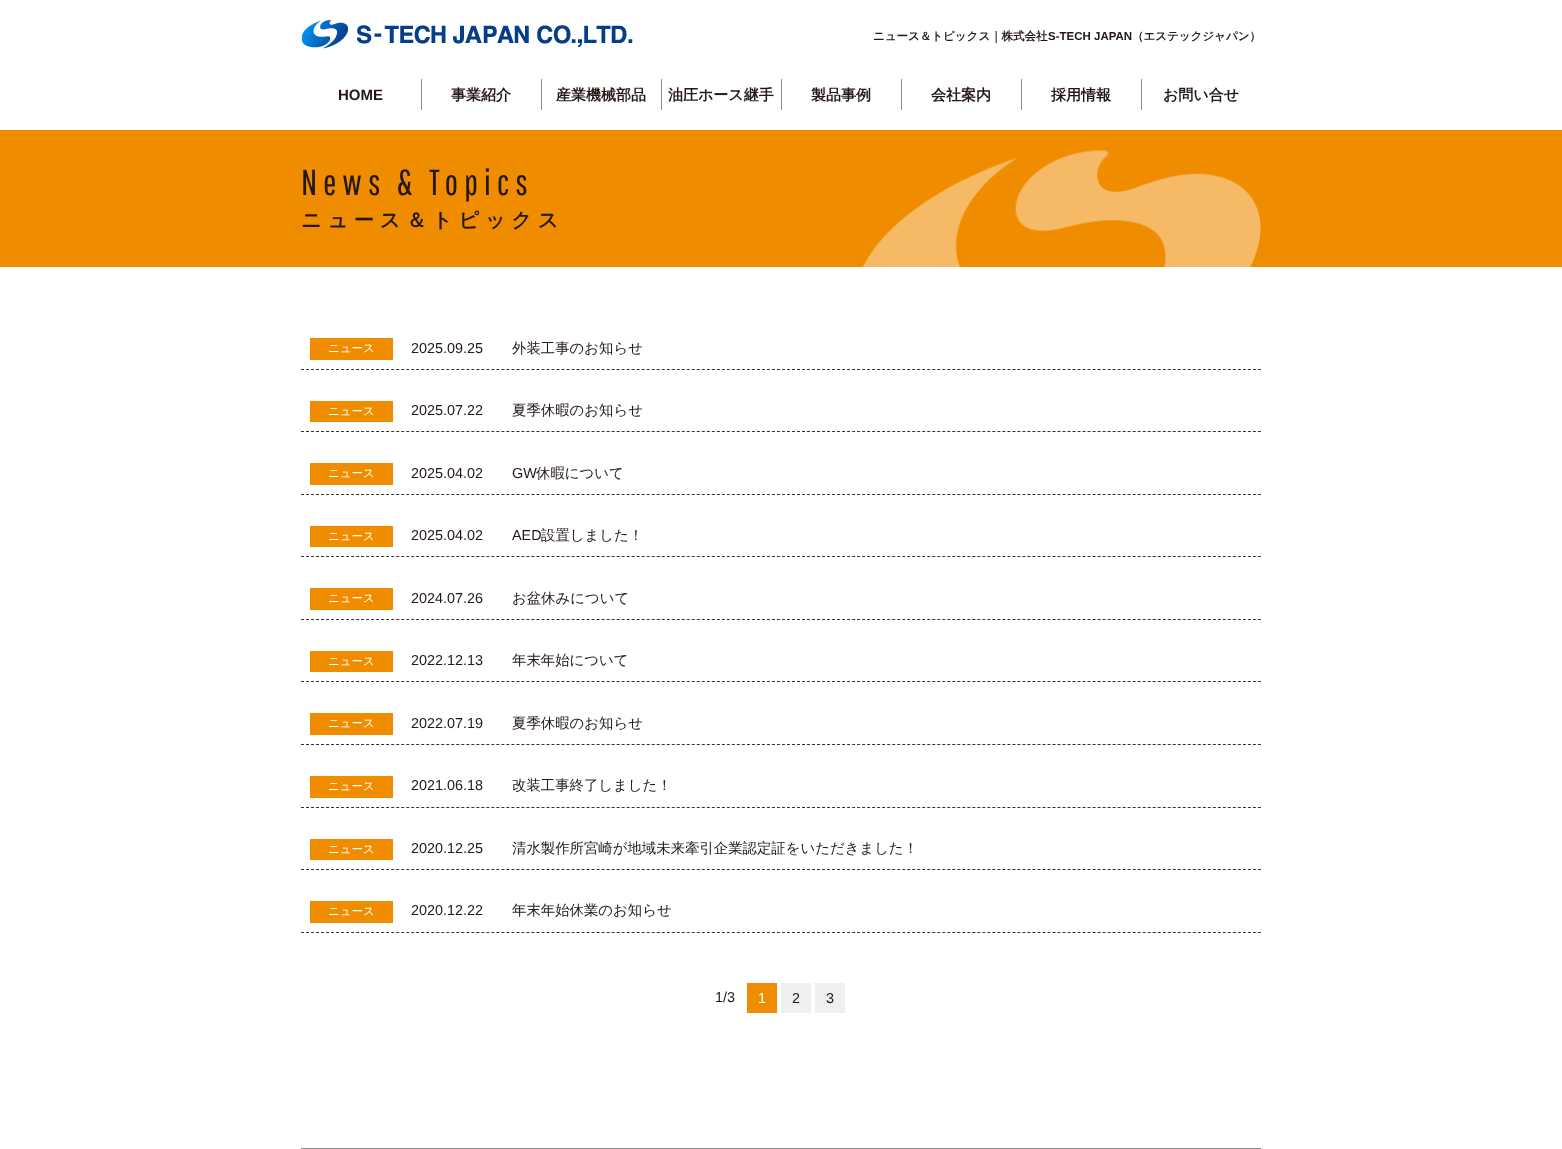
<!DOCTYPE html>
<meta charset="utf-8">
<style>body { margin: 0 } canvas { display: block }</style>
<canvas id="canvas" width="1562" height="1149"></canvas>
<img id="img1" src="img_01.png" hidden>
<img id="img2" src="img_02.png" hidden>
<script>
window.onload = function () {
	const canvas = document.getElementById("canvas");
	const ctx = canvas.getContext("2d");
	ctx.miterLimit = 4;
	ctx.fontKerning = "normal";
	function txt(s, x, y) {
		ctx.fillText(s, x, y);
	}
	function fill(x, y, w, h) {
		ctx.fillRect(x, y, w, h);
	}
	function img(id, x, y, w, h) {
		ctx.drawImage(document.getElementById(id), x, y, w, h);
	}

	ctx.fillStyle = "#FFFFFF";
	fill(0, 0, 1562, 1149);
	img("img1", 301, 20, 332, 29);
	ctx.fillStyle = "#918C8A";
	fill(421, 79, 1, 31);
	fill(541, 79, 1, 31);
	fill(661, 79, 1, 31);
	fill(781, 79, 1, 31);
	fill(901, 79, 1, 31);
	fill(1021, 79, 1, 31);
	fill(1141, 79, 1, 31);
	ctx.fillStyle = "#F08C00";
	fill(0, 130, 1562, 137);
	img("img2", 863, 150, 398, 117);
	ctx.beginPath();
	ctx.moveTo(301, 369.5);
	ctx.lineTo(1261, 369.5);
	ctx.strokeStyle = "#333333";
	ctx.setLineDash([3, 2.01]);
	ctx.stroke();
	fill(310, 338, 83, 22);
	ctx.beginPath();
	ctx.moveTo(301, 431.5);
	ctx.lineTo(1261, 431.5);
	ctx.stroke();
	fill(310, 401, 83, 21);
	ctx.beginPath();
	ctx.moveTo(301, 494.5);
	ctx.lineTo(1261, 494.5);
	ctx.stroke();
	fill(310, 463, 83, 22);
	ctx.beginPath();
	ctx.moveTo(301, 556.5);
	ctx.lineTo(1261, 556.5);
	ctx.stroke();
	fill(310, 526, 83, 21);
	ctx.beginPath();
	ctx.moveTo(301, 619.5);
	ctx.lineTo(1261, 619.5);
	ctx.stroke();
	fill(310, 588, 83, 22);
	ctx.beginPath();
	ctx.moveTo(301, 681.5);
	ctx.lineTo(1261, 681.5);
	ctx.stroke();
	fill(310, 651, 83, 21);
	ctx.beginPath();
	ctx.moveTo(301, 744.5);
	ctx.lineTo(1261, 744.5);
	ctx.stroke();
	fill(310, 713, 83, 22);
	ctx.beginPath();
	ctx.moveTo(301, 807.5);
	ctx.lineTo(1261, 807.5);
	ctx.stroke();
	fill(310, 776, 83, 22);
	ctx.beginPath();
	ctx.moveTo(301, 869.5);
	ctx.lineTo(1261, 869.5);
	ctx.stroke();
	fill(310, 839, 83, 21);
	ctx.beginPath();
	ctx.moveTo(301, 932.5);
	ctx.lineTo(1261, 932.5);
	ctx.stroke();
	fill(310, 901, 83, 22);
	fill(747, 983, 30, 30);
	ctx.fillStyle = "#EFEFEF";
	fill(781, 983, 30, 30);
	fill(815, 983, 30, 30);
	ctx.fillStyle = "#898989";
	fill(301, 1148, 960, 1);
	ctx.font = "bold 11.5px WenQuanYi Zen Hei";
	ctx.fillStyle = "#231815";
	txt("ニュース＆トピックス｜株式会社", 873, 40);
	ctx.font = "bold 11.5px Liberation Sans";
	txt("S-TECH JAPAN", 1048, 40);
	ctx.font = "bold 11.5px WenQuanYi Zen Hei";
	txt("（エステックジャパン）", 1132, 40);
	ctx.font = "bold 15px Liberation Sans";
	txt("HOME", 338, 100);
	ctx.font = "bold 15px WenQuanYi Zen Hei";
	txt("事業紹介", 451, 100);
	txt("産業機械部品", 556, 100);
	txt("油圧ホース継手", 668, 100);
	txt("製品事例", 811, 100);
	txt("会社案内", 931, 100);
	txt("採用情報", 1051, 100);
	txt("お問い合せ", 1163, 100);
	ctx.letterSpacing = "5.75px";
	ctx.font = "36px Pathway Gothic One";
	txt("News & Topics", 301, 195);
	ctx.font = "bold 20.2px WenQuanYi Zen Hei";
	txt("ニュース＆トピックス", 301, 227);
	ctx.letterSpacing = "0px";
	ctx.font = "500 11.5px WenQuanYi Zen Hei";
	ctx.fillStyle = "#FFFFFF";
	txt("ニュース", 328, 352);
	ctx.font = "14.4px Liberation Sans";
	ctx.fillStyle = "#231815";
	txt("2025.09.25", 411, 353);
	ctx.font = "500 14.4px WenQuanYi Zen Hei";
	txt("外装工事のお知らせ", 512, 353);
	ctx.font = "500 11.5px WenQuanYi Zen Hei";
	ctx.fillStyle = "#FFFFFF";
	txt("ニュース", 328, 415);
	ctx.font = "14.4px Liberation Sans";
	ctx.fillStyle = "#231815";
	txt("2025.07.22", 411, 415);
	ctx.font = "500 14.4px WenQuanYi Zen Hei";
	txt("夏季休暇のお知らせ", 512, 415);
	ctx.font = "500 11.5px WenQuanYi Zen Hei";
	ctx.fillStyle = "#FFFFFF";
	txt("ニュース", 328, 477);
	ctx.font = "14.4px Liberation Sans";
	ctx.fillStyle = "#231815";
	txt("2025.04.02", 411, 478);
	txt("GW", 512, 478);
	ctx.font = "500 14.4px WenQuanYi Zen Hei";
	txt("休暇について", 536, 478);
	ctx.font = "500 11.5px WenQuanYi Zen Hei";
	ctx.fillStyle = "#FFFFFF";
	txt("ニュース", 328, 540);
	ctx.font = "14.4px Liberation Sans";
	ctx.fillStyle = "#231815";
	txt("2025.04.02", 411, 540);
	txt("AED", 512, 540);
	ctx.font = "500 14.4px WenQuanYi Zen Hei";
	txt("設置しました！", 541, 540);
	ctx.font = "500 11.5px WenQuanYi Zen Hei";
	ctx.fillStyle = "#FFFFFF";
	txt("ニュース", 328, 602);
	ctx.font = "14.4px Liberation Sans";
	ctx.fillStyle = "#231815";
	txt("2024.07.26", 411, 603);
	ctx.font = "500 14.4px WenQuanYi Zen Hei";
	txt("お盆休みについて", 512, 603);
	ctx.font = "500 11.5px WenQuanYi Zen Hei";
	ctx.fillStyle = "#FFFFFF";
	txt("ニュース", 328, 665);
	ctx.font = "14.4px Liberation Sans";
	ctx.fillStyle = "#231815";
	txt("2022.12.13", 411, 665);
	ctx.font = "500 14.4px WenQuanYi Zen Hei";
	txt("年末年始について", 512, 665);
	ctx.font = "500 11.5px WenQuanYi Zen Hei";
	ctx.fillStyle = "#FFFFFF";
	txt("ニュース", 328, 727);
	ctx.font = "14.4px Liberation Sans";
	ctx.fillStyle = "#231815";
	txt("2022.07.19", 411, 728);
	ctx.font = "500 14.4px WenQuanYi Zen Hei";
	txt("夏季休暇のお知らせ", 512, 728);
	ctx.font = "500 11.5px WenQuanYi Zen Hei";
	ctx.fillStyle = "#FFFFFF";
	txt("ニュース", 328, 790);
	ctx.font = "14.4px Liberation Sans";
	ctx.fillStyle = "#231815";
	txt("2021.06.18", 411, 790);
	ctx.font = "500 14.4px WenQuanYi Zen Hei";
	txt("改装工事終了しました！", 512, 790);
	ctx.font = "500 11.5px WenQuanYi Zen Hei";
	ctx.fillStyle = "#FFFFFF";
	txt("ニュース", 328, 853);
	ctx.font = "14.4px Liberation Sans";
	ctx.fillStyle = "#231815";
	txt("2020.12.25", 411, 853);
	ctx.font = "500 14.4px WenQuanYi Zen Hei";
	txt("清水製作所宮崎が地域未来牽引企業認定証をいただきました！", 512, 853);
	ctx.font = "500 11.5px WenQuanYi Zen Hei";
	ctx.fillStyle = "#FFFFFF";
	txt("ニュース", 328, 915);
	ctx.font = "14.4px Liberation Sans";
	ctx.fillStyle = "#231815";
	txt("2020.12.22", 411, 915);
	ctx.font = "500 14.4px WenQuanYi Zen Hei";
	txt("年末年始休業のお知らせ", 512, 915);
	ctx.font = "14.4px Liberation Sans";
	txt("1/3", 715, 1002);
	ctx.fillStyle = "#FFFFFF";
	txt("1", 758, 1003);
	ctx.fillStyle = "#231815";
	txt("2", 792, 1003);
	txt("3", 826, 1003);
};
</script>
